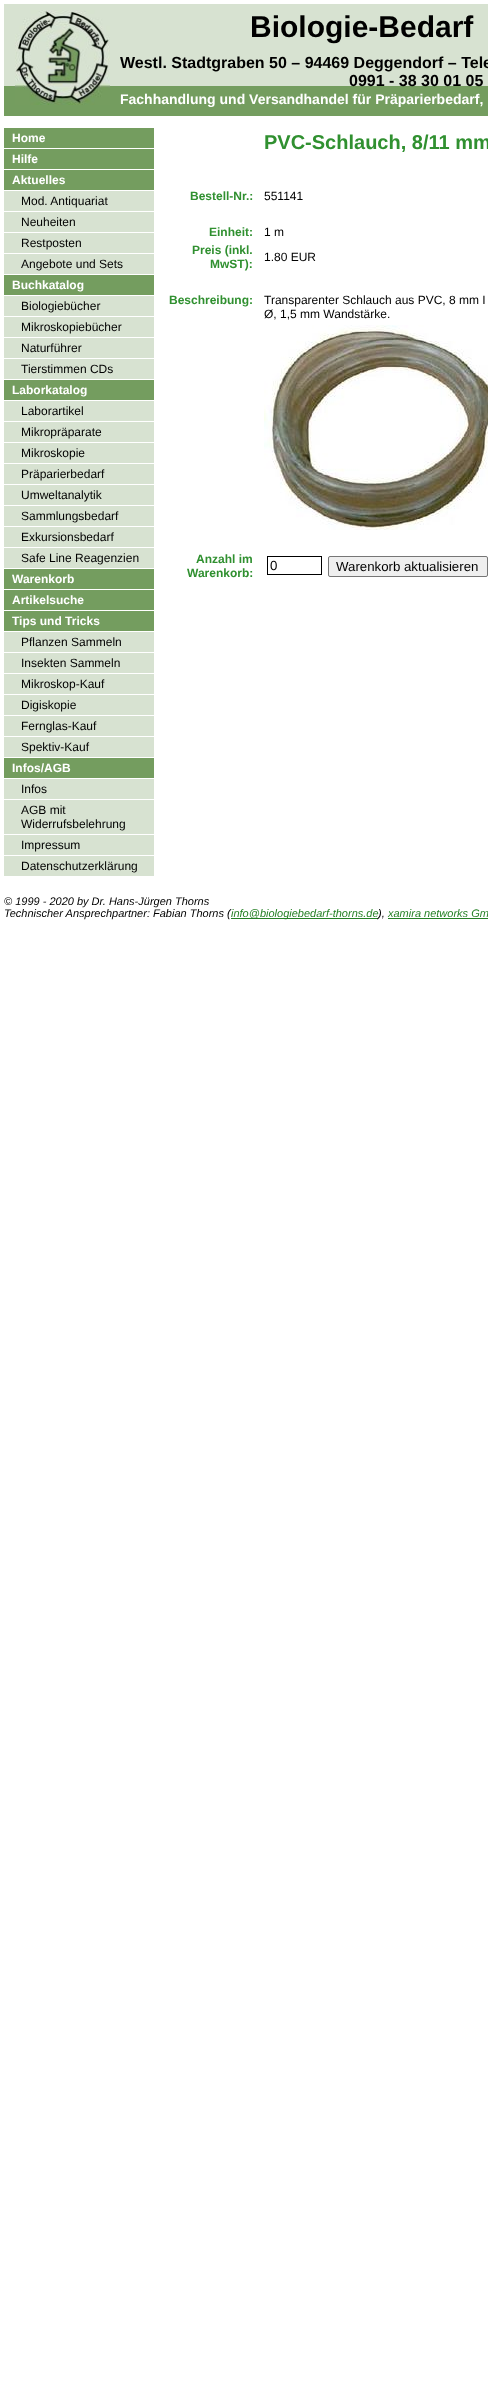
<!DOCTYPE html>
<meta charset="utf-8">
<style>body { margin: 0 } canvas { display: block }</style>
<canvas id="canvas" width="488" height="2404"></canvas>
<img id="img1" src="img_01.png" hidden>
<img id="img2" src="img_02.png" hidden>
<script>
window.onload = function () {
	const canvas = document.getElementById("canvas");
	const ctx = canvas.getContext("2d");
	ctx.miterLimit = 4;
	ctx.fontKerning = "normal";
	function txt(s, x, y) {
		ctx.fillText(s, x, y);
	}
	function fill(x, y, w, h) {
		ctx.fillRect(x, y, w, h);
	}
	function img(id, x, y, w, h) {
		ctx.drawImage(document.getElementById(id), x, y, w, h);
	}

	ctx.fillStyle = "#FFFFFF";
	fill(0, 0, 488, 2404);
	ctx.fillStyle = "#D7E2D1";
	fill(4, 4, 484, 82);
	ctx.fillStyle = "#749D5F";
	fill(4, 86, 484, 30);
	img("img1", 15, 10, 95, 95);
	fill(4, 128, 150, 20);
	fill(4, 149, 150, 20);
	fill(4, 170, 150, 20);
	ctx.fillStyle = "#D7E2D1";
	fill(4, 191, 150, 20);
	fill(4, 212, 150, 20);
	fill(4, 233, 150, 20);
	fill(4, 254, 150, 20);
	ctx.fillStyle = "#749D5F";
	fill(4, 275, 150, 20);
	ctx.fillStyle = "#D7E2D1";
	fill(4, 296, 150, 20);
	fill(4, 317, 150, 20);
	fill(4, 338, 150, 20);
	fill(4, 359, 150, 20);
	ctx.fillStyle = "#749D5F";
	fill(4, 380, 150, 20);
	ctx.fillStyle = "#D7E2D1";
	fill(4, 401, 150, 20);
	fill(4, 422, 150, 20);
	fill(4, 443, 150, 20);
	fill(4, 464, 150, 20);
	fill(4, 485, 150, 20);
	fill(4, 506, 150, 20);
	fill(4, 527, 150, 20);
	fill(4, 548, 150, 20);
	ctx.fillStyle = "#749D5F";
	fill(4, 569, 150, 20);
	fill(4, 590, 150, 20);
	fill(4, 611, 150, 20);
	ctx.fillStyle = "#D7E2D1";
	fill(4, 632, 150, 20);
	fill(4, 653, 150, 20);
	fill(4, 674, 150, 20);
	fill(4, 695, 150, 20);
	fill(4, 716, 150, 20);
	fill(4, 737, 150, 20);
	ctx.fillStyle = "#749D5F";
	fill(4, 758, 150, 20);
	ctx.fillStyle = "#D7E2D1";
	fill(4, 779, 150, 20);
	fill(4, 800, 150, 34);
	fill(4, 835, 150, 20);
	fill(4, 856, 150, 20);
	img("img2", 264, 325, 224, 205);
	ctx.strokeStyle = "#000000";
	ctx.strokeRect(267.5, 556.5, 54, 18);
	ctx.fillStyle = "#EFEFEF";
	ctx.beginPath();
	ctx.roundRect(328.5, 556.5, 159, 20, 1.5);
	ctx.fill();
	ctx.strokeStyle = "#767676";
	ctx.stroke();
	ctx.fillStyle = "#258025";
	fill(388, 918, 100, 1);
	ctx.font = "bold 30px Liberation Sans";
	ctx.fillStyle = "#000000";
	txt("Biologie-Bedarf", 250, 37);
	ctx.font = "bold 16px Liberation Sans";
	txt("Westl. Stadtgraben 50 – 94469 Deggendorf – Tele", 120, 68);
	txt("0991 - 38 30 01 05", 349, 86);
	ctx.font = "bold 14px Liberation Sans";
	ctx.fillStyle = "#FFFFFF";
	txt("Fachhandlung und Versandhandel für Präparierbedarf,", 120, 104);
	ctx.font = "bold 12px Liberation Sans";
	txt("Home", 12, 142);
	txt("Hilfe", 12, 163);
	txt("Aktuelles", 12, 184);
	ctx.font = "12px Liberation Sans";
	ctx.fillStyle = "#000000";
	txt("Mod. Antiquariat", 21, 205);
	txt("Neuheiten", 21, 226);
	txt("Restposten", 21, 247);
	txt("Angebote und Sets", 21, 268);
	ctx.font = "bold 12px Liberation Sans";
	ctx.fillStyle = "#FFFFFF";
	txt("Buchkatalog", 12, 289);
	ctx.font = "12px Liberation Sans";
	ctx.fillStyle = "#000000";
	txt("Biologiebücher", 21, 310);
	txt("Mikroskopiebücher", 21, 331);
	txt("Naturführer", 21, 352);
	txt("Tierstimmen CDs", 21, 373);
	ctx.font = "bold 12px Liberation Sans";
	ctx.fillStyle = "#FFFFFF";
	txt("Laborkatalog", 12, 394);
	ctx.font = "12px Liberation Sans";
	ctx.fillStyle = "#000000";
	txt("Laborartikel", 21, 415);
	txt("Mikropräparate", 21, 436);
	txt("Mikroskopie", 21, 457);
	txt("Präparierbedarf", 21, 478);
	txt("Umweltanalytik", 21, 499);
	txt("Sammlungsbedarf", 21, 520);
	txt("Exkursionsbedarf", 21, 541);
	txt("Safe Line Reagenzien", 21, 562);
	ctx.font = "bold 12px Liberation Sans";
	ctx.fillStyle = "#FFFFFF";
	txt("Warenkorb", 12, 583);
	txt("Artikelsuche", 12, 604);
	txt("Tips und Tricks", 12, 625);
	ctx.font = "12px Liberation Sans";
	ctx.fillStyle = "#000000";
	txt("Pflanzen Sammeln", 21, 646);
	txt("Insekten Sammeln", 21, 667);
	txt("Mikroskop-Kauf", 21, 688);
	txt("Digiskopie", 21, 709);
	txt("Fernglas-Kauf", 21, 730);
	txt("Spektiv-Kauf", 21, 751);
	ctx.font = "bold 12px Liberation Sans";
	ctx.fillStyle = "#FFFFFF";
	txt("Infos/AGB", 12, 772);
	ctx.font = "12px Liberation Sans";
	ctx.fillStyle = "#000000";
	txt("Infos", 21, 793);
	txt("AGB mit", 21, 814);
	txt("Widerrufsbelehrung", 21, 828);
	txt("Impressum", 21, 849);
	txt("Datenschutzerklärung", 21, 870);
	ctx.font = "bold 20px Liberation Sans";
	ctx.fillStyle = "#309030";
	txt("PVC-Schlauch, 8/11 mm", 264, 149);
	ctx.font = "bold 12px Liberation Sans";
	txt("Bestell-Nr.:", 190, 200);
	ctx.font = "12px Liberation Sans";
	ctx.fillStyle = "#000000";
	txt("551141", 264, 200);
	ctx.font = "bold 12px Liberation Sans";
	ctx.fillStyle = "#309030";
	txt("Einheit:", 209, 236);
	ctx.font = "12px Liberation Sans";
	ctx.fillStyle = "#000000";
	txt("1 m", 264, 236);
	ctx.font = "bold 12px Liberation Sans";
	ctx.fillStyle = "#309030";
	txt("Preis (inkl.", 192, 254);
	txt("MwST):", 210, 268);
	ctx.font = "12px Liberation Sans";
	ctx.fillStyle = "#000000";
	txt("1.80 EUR", 264, 261);
	ctx.font = "bold 12px Liberation Sans";
	ctx.fillStyle = "#309030";
	txt("Beschreibung:", 169, 304);
	ctx.font = "12px Liberation Sans";
	ctx.fillStyle = "#000000";
	txt("Transparenter Schlauch aus PVC, 8 mm I", 264, 304);
	txt("Ø, 1,5 mm Wandstärke.", 264, 318);
	ctx.font = "bold 12px Liberation Sans";
	ctx.fillStyle = "#309030";
	txt("Anzahl im", 196, 563);
	txt("Warenkorb:", 187, 577);
	ctx.font = "13.25px Liberation Sans";
	ctx.fillStyle = "#000000";
	txt("0", 270, 570);
	txt("Warenkorb aktualisieren", 336, 571);
	ctx.font = "italic 11px Liberation Sans";
	txt("© 1999 - 2020 by Dr. Hans-Jürgen Thorns", 4, 905);
	txt("Technischer Ansprechpartner: Fabian Thorns (", 4, 917);
	ctx.fillStyle = "#258025";
	fill(231, 918, 147, 1);
	txt("info@biologiebedarf-thorns.de", 231, 917);
	ctx.fillStyle = "#000000";
	txt("),", 378, 917);
	ctx.fillStyle = "#258025";
	txt("xamira networks Gm", 388, 917);
};
</script>
